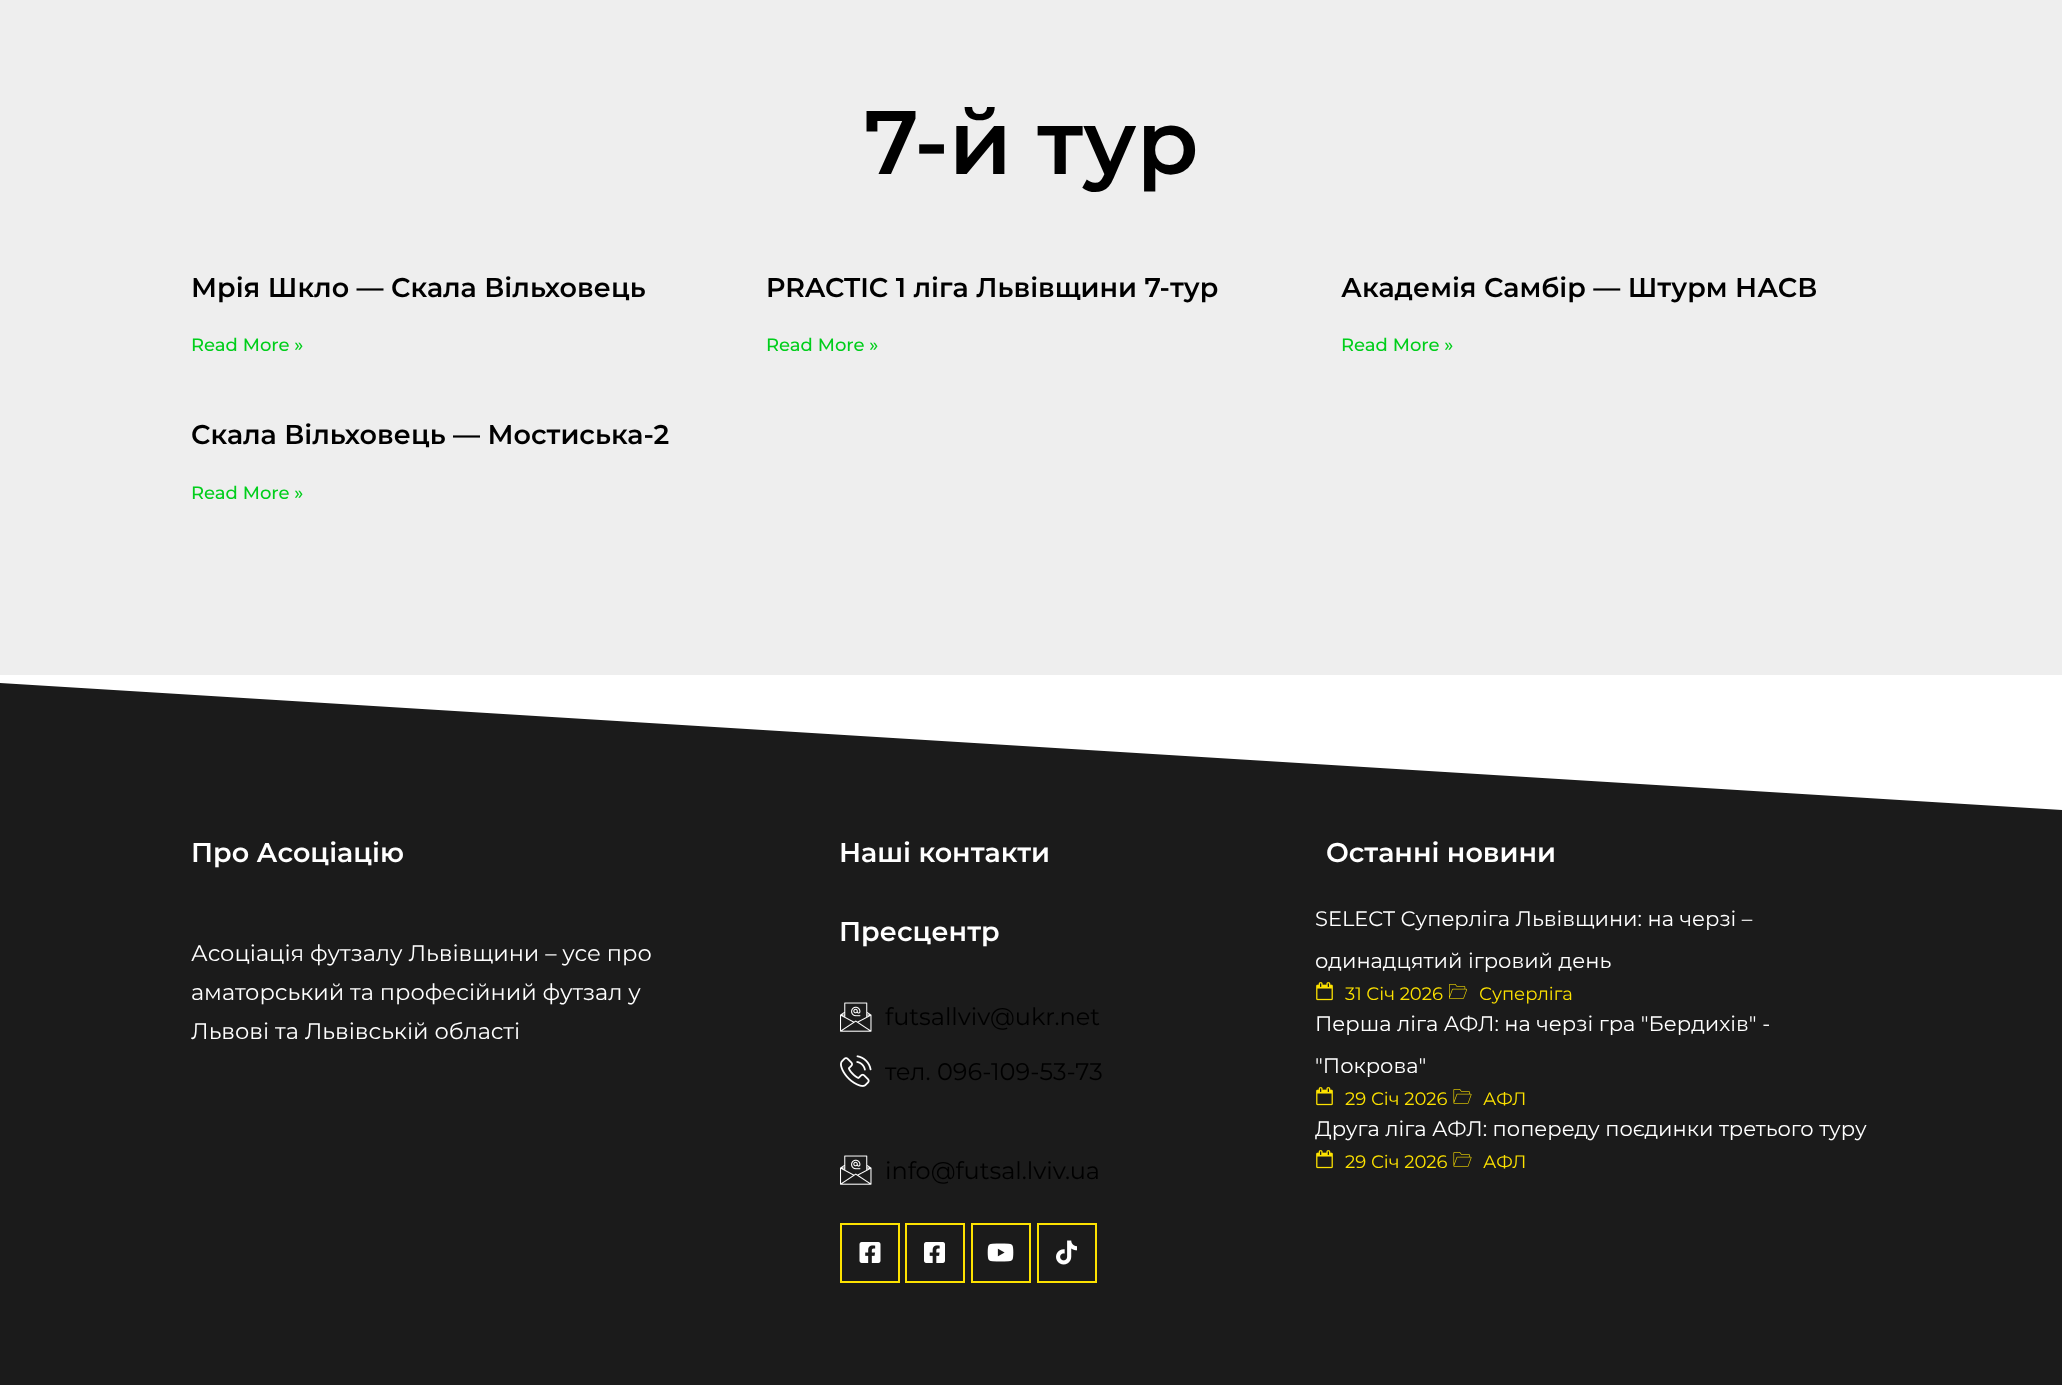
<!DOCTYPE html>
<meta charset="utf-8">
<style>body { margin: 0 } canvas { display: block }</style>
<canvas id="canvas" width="2062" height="1385"></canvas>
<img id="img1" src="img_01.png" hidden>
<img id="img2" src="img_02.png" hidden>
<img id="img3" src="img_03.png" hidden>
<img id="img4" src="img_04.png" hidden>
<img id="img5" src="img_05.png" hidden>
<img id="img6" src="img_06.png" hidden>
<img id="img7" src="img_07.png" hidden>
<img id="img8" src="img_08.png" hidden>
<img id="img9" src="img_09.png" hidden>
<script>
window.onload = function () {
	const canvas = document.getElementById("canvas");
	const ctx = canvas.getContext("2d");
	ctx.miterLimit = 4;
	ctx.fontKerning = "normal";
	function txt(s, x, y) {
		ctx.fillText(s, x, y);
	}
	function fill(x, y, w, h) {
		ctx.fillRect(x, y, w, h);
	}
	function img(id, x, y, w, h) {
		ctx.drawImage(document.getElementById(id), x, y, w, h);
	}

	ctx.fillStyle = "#EEEEEE";
	fill(0, 0, 2062, 1385);
	ctx.fillStyle = "#1B1B1B";
	fill(0, 683, 2062, 702);
	ctx.fillStyle = "#FFFFFF";
	ctx.beginPath();
	ctx.moveTo(0, 683);
	ctx.lineTo(0, 675);
	ctx.lineTo(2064, 675);
	ctx.lineTo(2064, 810);
	ctx.closePath();
	ctx.fill();
	img("img1", 840, 1002, 32, 30);
	img("img2", 840, 1055, 32, 32);
	img("img1", 840, 1155, 32, 30);
	ctx.strokeStyle = "#FDE200";
	ctx.lineWidth = 2;
	ctx.strokeRect(841, 1224, 58, 58);
	img("img3", 859, 1242, 22, 21);
	ctx.strokeRect(906, 1224, 58, 58);
	img("img4", 924, 1242, 21, 21);
	ctx.strokeRect(972, 1224, 58, 58);
	img("img5", 987, 1243, 27, 19);
	ctx.strokeRect(1038, 1224, 58, 58);
	img("img6", 1056, 1240, 21, 25);
	img("img7", 1316, 982, 17, 19);
	img("img8", 1449, 984, 18, 15);
	img("img7", 1316, 1087, 17, 19);
	img("img9", 1453, 1089, 19, 15);
	img("img7", 1316, 1150, 17, 19);
	img("img9", 1453, 1152, 19, 15);
	ctx.font = "600 90px Montserrat";
	ctx.fillStyle = "#000000";
	txt("7-й тур", 864, 174);
	ctx.font = "600 27px Montserrat";
	txt("Мрія Шкло — Скала Вільховець", 191, 297);
	ctx.font = "500 18px Montserrat";
	ctx.fillStyle = "#00CE1B";
	txt("Read More »", 191, 351);
	ctx.font = "600 27px Montserrat";
	ctx.fillStyle = "#000000";
	txt("PRACTIC 1 ліга Львівщини 7-тур", 766, 297);
	ctx.font = "500 18px Montserrat";
	ctx.fillStyle = "#00CE1B";
	txt("Read More »", 766, 351);
	ctx.font = "600 27px Montserrat";
	ctx.fillStyle = "#000000";
	txt("Академія Самбір — Штурм НАСВ", 1341, 297);
	ctx.font = "500 18px Montserrat";
	ctx.fillStyle = "#00CE1B";
	txt("Read More »", 1341, 351);
	ctx.font = "600 27px Montserrat";
	ctx.fillStyle = "#000000";
	txt("Скала Вільховець — Мостиська-2", 191, 444);
	ctx.font = "500 18px Montserrat";
	ctx.fillStyle = "#00CE1B";
	txt("Read More »", 191, 499);
	ctx.font = "600 27px Montserrat";
	ctx.fillStyle = "#FFFFFF";
	txt("Про Асоціацію", 191, 862);
	ctx.font = "22.5px Montserrat";
	txt("Асоціація футзалу Львівщини – усе про", 191, 961);
	txt("аматорський та професійний футзал у", 191, 1000);
	txt("Львові та Львівській області", 191, 1039);
	ctx.font = "600 27px Montserrat";
	txt("Наші контакти", 839, 862);
	txt("Пресцентр", 839, 941);
	ctx.font = "24px Montserrat";
	ctx.fillStyle = "#000000";
	txt("futsallviv@ukr.net", 885, 1025);
	txt("тел. 096-109-53-73", 885, 1080);
	txt("info@futsal.lviv.ua", 885, 1179);
	ctx.font = "600 27px Montserrat";
	ctx.fillStyle = "#FFFFFF";
	txt("Останні новини", 1326, 862);
	ctx.font = "21px Montserrat";
	txt("SELECT Суперліга Львівщини: на черзі –", 1315, 926);
	txt("одинадцятий ігровий день", 1315, 968);
	ctx.font = "18px Montserrat";
	ctx.fillStyle = "#FDE200";
	txt("31 Січ 2026", 1345, 1000);
	txt("Суперліга", 1479, 1000);
	ctx.font = "21px Montserrat";
	ctx.fillStyle = "#FFFFFF";
	txt("Перша ліга АФЛ: на черзі гра \"Бердихів\" -", 1315, 1031);
	txt("\"Покрова\"", 1315, 1073);
	ctx.font = "18px Montserrat";
	ctx.fillStyle = "#FDE200";
	txt("29 Січ 2026", 1345, 1105);
	txt("АФЛ", 1483, 1105);
	ctx.font = "21px Montserrat";
	ctx.fillStyle = "#FFFFFF";
	txt("Друга ліга АФЛ: попереду поєдинки третього туру", 1315, 1136);
	ctx.font = "18px Montserrat";
	ctx.fillStyle = "#FDE200";
	txt("29 Січ 2026", 1345, 1168);
	txt("АФЛ", 1483, 1168);
};
</script>
